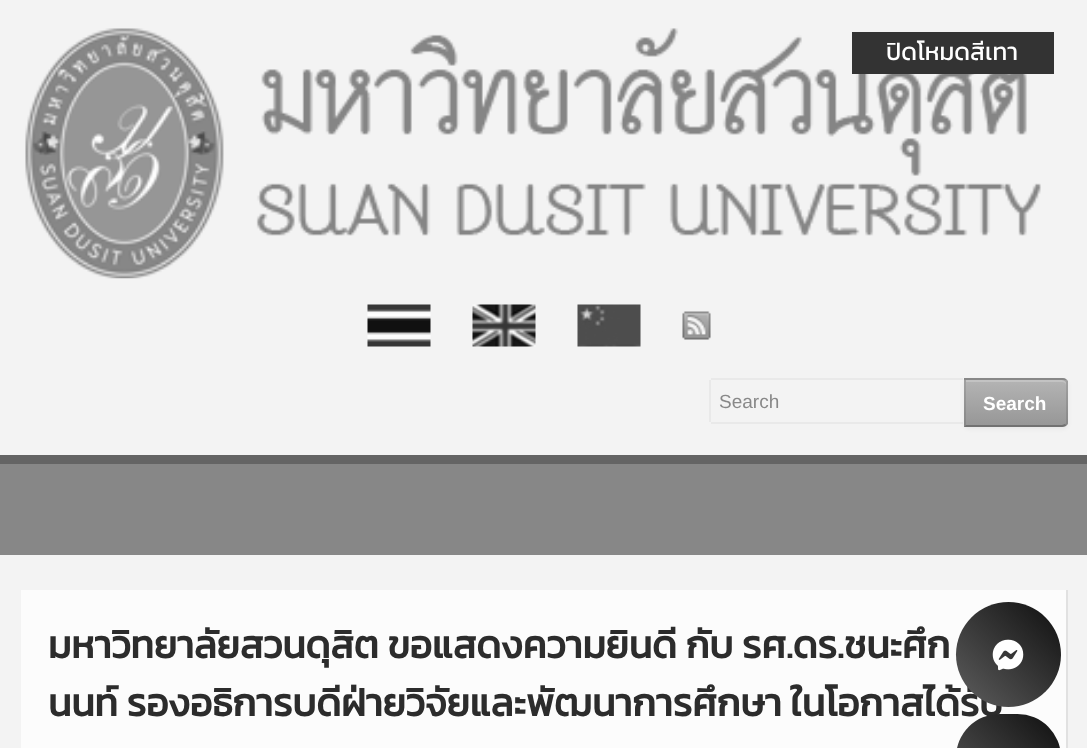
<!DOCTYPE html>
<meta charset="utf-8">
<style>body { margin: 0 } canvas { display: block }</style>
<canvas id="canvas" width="1087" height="748"></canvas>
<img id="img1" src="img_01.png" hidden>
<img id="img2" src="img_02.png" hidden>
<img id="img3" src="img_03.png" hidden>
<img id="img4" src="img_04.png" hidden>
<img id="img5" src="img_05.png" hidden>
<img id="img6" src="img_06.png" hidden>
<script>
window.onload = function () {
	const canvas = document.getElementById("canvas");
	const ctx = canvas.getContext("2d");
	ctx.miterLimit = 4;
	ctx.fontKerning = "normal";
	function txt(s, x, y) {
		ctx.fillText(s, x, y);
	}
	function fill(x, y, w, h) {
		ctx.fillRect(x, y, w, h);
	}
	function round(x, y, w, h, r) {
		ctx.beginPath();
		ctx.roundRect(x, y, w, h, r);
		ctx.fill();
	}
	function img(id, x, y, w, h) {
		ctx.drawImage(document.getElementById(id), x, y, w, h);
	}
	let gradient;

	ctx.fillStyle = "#F3F3F3";
	fill(0, 0, 1087, 748);
	img("img1", 25, 28, 1016, 251);
	ctx.fillStyle = "#333333";
	fill(852, 32, 202, 42);
	img("img2", 367, 304, 64, 43);
	img("img3", 472, 304, 64, 43);
	img("img4", 577, 304, 64, 43);
	img("img5", 682, 311, 29, 29);
	ctx.fillStyle = "#E9E9E9";
	fill(711, 378, 252, 2);
	fill(711, 422, 252, 2);
	fill(709, 380, 2, 42);
	ctx.fillStyle = "rgba(0, 0, 0, 0.05)";
	ctx.filter = "blur(2px)";
	ctx.beginPath();
	ctx.roundRect(964, 380, 104, 49, 5);
	ctx.fill();
	ctx.filter = "none";
	ctx.fillStyle = "#979797";
	ctx.beginPath();
	ctx.roundRect(964, 378, 104, 49, [0, 5, 5, 0]);
	ctx.fill();
	ctx.save();
	ctx.beginPath();
	ctx.roundRect(964, 378, 104, 49, [0, 5, 5, 0]);
	ctx.clip();
	gradient = ctx.createLinearGradient(1016, 380, 1016, 425);
	gradient.addColorStop(0, "#B4B4B4");
	gradient.addColorStop(1, "#979797");
	ctx.fillStyle = gradient;
	fill(964, 380, 104, 45);
	ctx.restore();
	ctx.fillStyle = "#C3C3C3";
	ctx.beginPath();
	ctx.moveTo(966, 382);
	ctx.lineTo(1062, 382);
	ctx.bezierCurveTo(1064, 382, 1066, 383, 1066, 385);
	ctx.lineTo(1066, 384);
	ctx.bezierCurveTo(1066, 382, 1064, 380, 1062, 380);
	ctx.lineTo(966, 380);
	ctx.closePath();
	ctx.fill();
	ctx.fillStyle = "rgba(0, 0, 0, 0.1)";
	ctx.beginPath();
	ctx.moveTo(964, 378);
	ctx.lineTo(966, 380);
	ctx.lineTo(1062, 380);
	ctx.lineTo(1065, 381);
	ctx.lineTo(1066, 379);
	ctx.bezierCurveTo(1065, 378, 1064, 378, 1062, 378);
	ctx.closePath();
	ctx.fill();
	ctx.beginPath();
	ctx.moveTo(1068, 424);
	ctx.lineTo(1066, 426);
	ctx.lineTo(1065, 424);
	ctx.bezierCurveTo(1066, 424, 1066, 423, 1066, 422);
	ctx.lineTo(1066, 383);
	ctx.bezierCurveTo(1066, 382, 1066, 381, 1065, 381);
	ctx.lineTo(1066, 379);
	ctx.lineTo(1068, 381);
	ctx.closePath();
	ctx.fill();
	ctx.fillStyle = "rgba(0, 0, 0, 0.25)";
	ctx.beginPath();
	ctx.moveTo(964, 427);
	ctx.lineTo(1062, 427);
	ctx.bezierCurveTo(1064, 427, 1065, 426, 1066, 426);
	ctx.lineTo(1065, 424);
	ctx.lineTo(1062, 425);
	ctx.lineTo(966, 425);
	ctx.closePath();
	ctx.fill();
	ctx.fillStyle = "rgba(0, 0, 0, 0.1)";
	ctx.beginPath();
	ctx.moveTo(966, 380);
	ctx.lineTo(964, 378);
	ctx.lineTo(964, 427);
	ctx.lineTo(966, 425);
	ctx.closePath();
	ctx.fill();
	ctx.fillStyle = "#878787";
	fill(0, 464, 1087, 91);
	ctx.fillStyle = "#646464";
	fill(0, 455, 1087, 9);
	ctx.fillStyle = "#FCFCFC";
	fill(21, 590, 1045, 158);
	ctx.fillStyle = "#E1E1E1";
	fill(1066, 590, 2, 158);
	ctx.font = "24.5px Kanit";
	ctx.fillStyle = "#FFFFFF";
	txt("ปิดโหมดสีเทา", 886, 60);
	ctx.font = "19px Liberation Sans";
	ctx.fillStyle = "#888888";
	txt("Search", 719, 408);
	ctx.font = "bold 19px Liberation Sans";
	ctx.fillStyle = "#FFFFFF";
	txt("Search", 983, 410);
	ctx.font = "bold 38.5px Kanit";
	ctx.fillStyle = "#2C2C2C";
	txt("มหาวิทยาลัยสวนดุสิต ขอแสดงความยินดี กับ รศ.ดร.ชนะศึก", 48, 658);
	txt("นนท์ รองอธิการบดีฝ่ายวิจัยและพัฒนาการศึกษา ในโอกาสได้รับ", 48, 716);
	gradient = ctx.createLinearGradient(956, 707, 1061, 602);
	gradient.addColorStop(0, "#5E5E5E");
	gradient.addColorStop(1, "#0F0F0F");
	ctx.fillStyle = gradient;
	ctx.beginPath();
	ctx.arc(1008.5, 654.5, 52.5, 0, Math.PI * 2);
	ctx.fill();
	img("img6", 992, 639, 32, 32);
	gradient = ctx.createLinearGradient(956, 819, 1061, 714);
	gradient.addColorStop(0, "#5E5E5E");
	gradient.addColorStop(1, "#0F0F0F");
	ctx.fillStyle = gradient;
	round(956, 714, 105, 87, 52.5);
};
</script>
